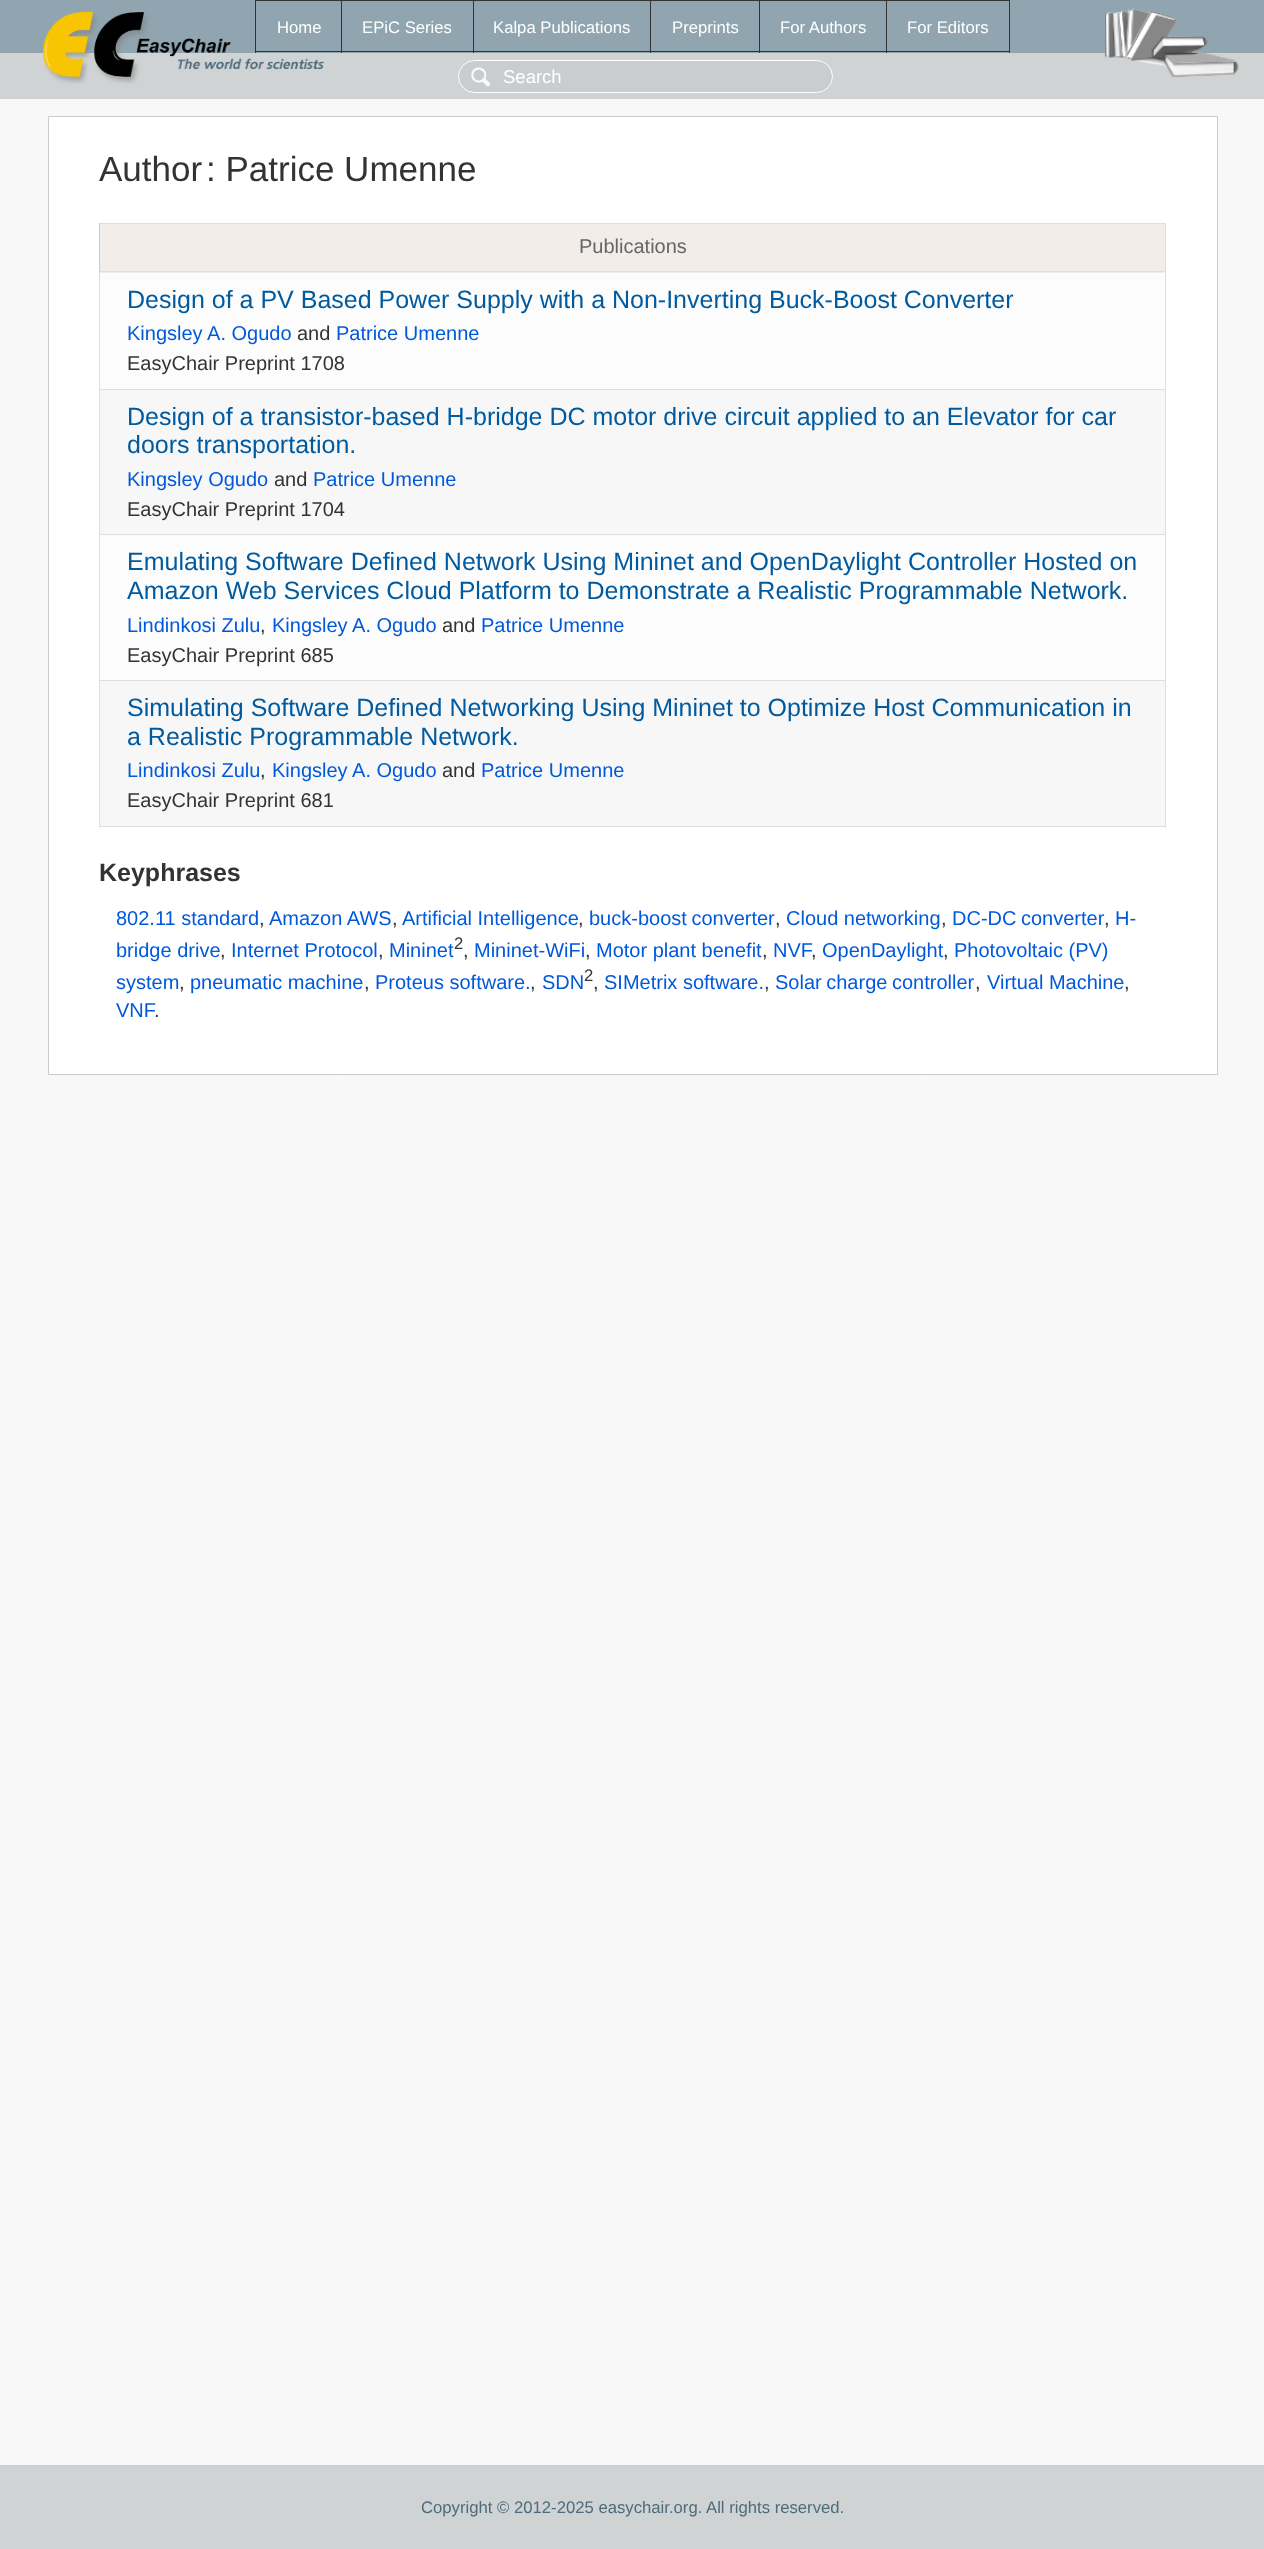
<!DOCTYPE html>
<meta charset="utf-8">
<style>body { margin: 0 } canvas { display: block }</style>
<canvas id="canvas" width="1264" height="2549"></canvas>
<img id="img1" src="img_01.png" hidden>
<img id="img2" src="img_02.png" hidden>
<img id="img3" src="img_03.png" hidden>
<script>
window.onload = function () {
	const canvas = document.getElementById("canvas");
	const ctx = canvas.getContext("2d");
	ctx.miterLimit = 4;
	ctx.fontKerning = "normal";
	function txt(s, x, y) {
		ctx.fillText(s, x, y);
	}
	function fill(x, y, w, h) {
		ctx.fillRect(x, y, w, h);
	}
	function round(x, y, w, h, r) {
		ctx.beginPath();
		ctx.roundRect(x, y, w, h, r);
		ctx.fill();
	}
	function img(id, x, y, w, h) {
		ctx.drawImage(document.getElementById(id), x, y, w, h);
	}

	ctx.fillStyle = "#90A5B0";
	fill(0, 0, 1264, 2549);
	ctx.fillStyle = "#D0D3D4";
	fill(0, 53, 1264, 46);
	img("img1", 43, 11, 281, 73);
	ctx.fillStyle = "#333333";
	fill(886, 0, 124, 1);
	fill(1009, 0, 1, 53);
	fill(886, 51, 124, 1);
	fill(886, 0, 1, 53);
	fill(759, 0, 129, 1);
	fill(759, 51, 129, 1);
	fill(759, 0, 1, 53);
	fill(650, 0, 110, 1);
	fill(650, 51, 110, 1);
	fill(650, 0, 1, 53);
	fill(473, 0, 178, 1);
	fill(473, 51, 178, 1);
	fill(473, 0, 1, 53);
	fill(341, 0, 133, 1);
	fill(341, 51, 133, 1);
	fill(341, 0, 1, 53);
	fill(255, 0, 88, 1);
	fill(255, 51, 88, 1);
	fill(255, 0, 1, 53);
	img("img2", 1105, 8, 134, 69);
	ctx.fillStyle = "#C9CDD0";
	round(458, 60, 375, 33, 16.5);
	img("img3", 471, 67, 19, 20);
	ctx.beginPath();
	ctx.roundRect(458.5, 60.5, 374, 32, 16);
	ctx.strokeStyle = "#FFFFFF";
	ctx.stroke();
	ctx.fillStyle = "#F8F8F8";
	fill(0, 99, 1264, 2366);
	ctx.fillStyle = "#FFFFFF";
	ctx.beginPath();
	ctx.rect(48.5, 116.5, 1169, 958);
	ctx.fill();
	ctx.strokeStyle = "#CCCCCC";
	ctx.stroke();
	ctx.fillStyle = "#DEDEDE";
	fill(99, 223, 1067, 1);
	fill(1165, 223, 1, 605);
	fill(99, 826, 1067, 1);
	fill(99, 273, 1, 555);
	ctx.fillStyle = "#F2EDE9";
	fill(100, 224, 1065, 49);
	ctx.fillStyle = "#DEDEDE";
	fill(99, 271, 1067, 1);
	ctx.fillStyle = "#CCCCCC";
	fill(99, 223, 1, 50);
	ctx.fillStyle = "#FCFCFC";
	fill(100, 273, 1065, 116);
	ctx.fillStyle = "#DEDEDE";
	fill(99, 389, 1067, 1);
	ctx.fillStyle = "#F7F7F7";
	fill(100, 390, 1065, 144);
	ctx.fillStyle = "#DEDEDE";
	fill(99, 534, 1067, 1);
	ctx.fillStyle = "#FCFCFC";
	fill(100, 535, 1065, 145);
	ctx.fillStyle = "#DEDEDE";
	fill(99, 680, 1067, 1);
	ctx.fillStyle = "#F7F7F7";
	fill(100, 681, 1065, 145);
	ctx.fillStyle = "#D0D3D4";
	fill(0, 2466, 1264, 83);
	ctx.fillStyle = "#CCCCCC";
	fill(0, 2465, 1264, 1);
	ctx.font = "16.7px Liberation Sans";
	ctx.fillStyle = "#FFFFFF";
	txt("Home", 277, 33);
	txt("EPiC Series", 362, 33);
	txt("Kalpa Publications", 493, 33);
	txt("Preprints", 672, 33);
	txt("For Authors", 780, 33);
	txt("For Editors", 907, 33);
	ctx.font = "18.5px Liberation Sans";
	txt("Search", 503, 83);
	ctx.font = "35px Liberation Sans";
	ctx.fillStyle = "#333333";
	txt("Author", 99, 181);
	txt(": Patrice Umenne", 206, 181);
	ctx.font = "20px Liberation Sans";
	ctx.fillStyle = "#666666";
	txt("Publications", 579, 253);
	ctx.font = "25px Liberation Sans";
	ctx.fillStyle = "#005A9F";
	txt("Design of a PV Based Power Supply with a Non-Inverting Buck-Boost Converter", 127, 308);
	ctx.font = "20px Liberation Sans";
	ctx.fillStyle = "#0059DB";
	txt("Kingsley A. Ogudo", 127, 340);
	ctx.fillStyle = "#333333";
	txt("and", 297, 340);
	ctx.fillStyle = "#0059DB";
	txt("Patrice Umenne", 336, 340);
	ctx.fillStyle = "#333333";
	txt("EasyChair Preprint 1708", 127, 370);
	ctx.font = "25px Liberation Sans";
	ctx.fillStyle = "#005A9F";
	txt("Design of a transistor-based H-bridge DC motor drive circuit applied to an Elevator for car", 127, 425);
	txt("doors transportation.", 127, 453);
	ctx.font = "20px Liberation Sans";
	ctx.fillStyle = "#0059DB";
	txt("Kingsley Ogudo", 127, 486);
	ctx.fillStyle = "#333333";
	txt("and", 274, 486);
	ctx.fillStyle = "#0059DB";
	txt("Patrice Umenne", 313, 486);
	ctx.fillStyle = "#333333";
	txt("EasyChair Preprint 1704", 127, 516);
	ctx.font = "25px Liberation Sans";
	ctx.fillStyle = "#005A9F";
	txt("Emulating Software Defined Network Using Mininet and OpenDaylight Controller Hosted on", 127, 570);
	txt("Amazon Web Services Cloud Platform to Demonstrate a Realistic Programmable Network.", 127, 599);
	ctx.font = "20px Liberation Sans";
	ctx.fillStyle = "#0059DB";
	txt("Lindinkosi Zulu", 127, 632);
	ctx.fillStyle = "#333333";
	txt(",", 260, 632);
	ctx.fillStyle = "#0059DB";
	txt("Kingsley A. Ogudo", 272, 632);
	ctx.fillStyle = "#333333";
	txt("and", 442, 632);
	ctx.fillStyle = "#0059DB";
	txt("Patrice Umenne", 481, 632);
	ctx.fillStyle = "#333333";
	txt("EasyChair Preprint 685", 127, 662);
	ctx.font = "25px Liberation Sans";
	ctx.fillStyle = "#005A9F";
	txt("Simulating Software Defined Networking Using Mininet to Optimize Host Communication in", 127, 716);
	txt("a Realistic Programmable Network.", 127, 745);
	ctx.font = "20px Liberation Sans";
	ctx.fillStyle = "#0059DB";
	txt("Lindinkosi Zulu", 127, 777);
	ctx.fillStyle = "#333333";
	txt(",", 260, 777);
	ctx.fillStyle = "#0059DB";
	txt("Kingsley A. Ogudo", 272, 777);
	ctx.fillStyle = "#333333";
	txt("and", 442, 777);
	ctx.fillStyle = "#0059DB";
	txt("Patrice Umenne", 481, 777);
	ctx.fillStyle = "#333333";
	txt("EasyChair Preprint 681", 127, 807);
	ctx.font = "bold 25px Liberation Sans";
	txt("Keyphrases", 99, 881);
	ctx.font = "20px Liberation Sans";
	ctx.fillStyle = "#0059DB";
	txt("802.11 standard", 116, 925);
	ctx.fillStyle = "#333333";
	txt(",", 259, 925);
	ctx.fillStyle = "#0059DB";
	txt("Amazon AWS", 269, 925);
	ctx.fillStyle = "#333333";
	txt(",", 392, 925);
	ctx.fillStyle = "#0059DB";
	txt("Artificial Intelligence", 402, 925);
	ctx.fillStyle = "#333333";
	txt(",", 578, 925);
	ctx.wordSpacing = "-1px";
	ctx.fillStyle = "#0059DB";
	txt("buck-boost converter", 589, 925);
	ctx.wordSpacing = "0px";
	ctx.fillStyle = "#333333";
	txt(",", 775, 925);
	ctx.fillStyle = "#0059DB";
	txt("Cloud networking", 786, 925);
	ctx.fillStyle = "#333333";
	txt(",", 941, 925);
	ctx.wordSpacing = "-1px";
	ctx.fillStyle = "#0059DB";
	txt("DC-DC converter", 952, 925);
	ctx.wordSpacing = "0px";
	ctx.fillStyle = "#333333";
	txt(",", 1104, 925);
	ctx.fillStyle = "#0059DB";
	txt("H-", 1115, 925);
	txt("bridge drive", 116, 957);
	ctx.fillStyle = "#333333";
	txt(",", 220, 957);
	ctx.fillStyle = "#0059DB";
	txt("Internet Protocol", 231, 957);
	ctx.fillStyle = "#333333";
	txt(",", 378, 957);
	ctx.fillStyle = "#0059DB";
	txt("Mininet", 389, 957);
	ctx.font = "16.7px Liberation Sans";
	ctx.fillStyle = "#333333";
	txt("2", 454, 949);
	ctx.font = "20px Liberation Sans";
	txt(",", 463, 957);
	ctx.fillStyle = "#0059DB";
	txt("Mininet-WiFi", 474, 957);
	ctx.fillStyle = "#333333";
	txt(",", 585, 957);
	ctx.fillStyle = "#0059DB";
	txt("Motor plant benefit", 596, 957);
	ctx.fillStyle = "#333333";
	txt(",", 762, 957);
	ctx.fillStyle = "#0059DB";
	txt("NVF", 773, 957);
	ctx.fillStyle = "#333333";
	txt(",", 811, 957);
	ctx.fillStyle = "#0059DB";
	txt("OpenDaylight", 822, 957);
	ctx.fillStyle = "#333333";
	txt(",", 943, 957);
	ctx.fillStyle = "#0059DB";
	txt("Photovoltaic (PV)", 954, 957);
	txt("system", 116, 989);
	ctx.fillStyle = "#333333";
	txt(",", 179, 989);
	ctx.fillStyle = "#0059DB";
	txt("pneumatic machine", 190, 989);
	ctx.fillStyle = "#333333";
	txt(",", 364, 989);
	ctx.fillStyle = "#0059DB";
	txt("Proteus software.", 375, 989);
	ctx.fillStyle = "#333333";
	txt(",", 530, 989);
	ctx.fillStyle = "#0059DB";
	txt("SDN", 542, 989);
	ctx.font = "16.7px Liberation Sans";
	ctx.fillStyle = "#333333";
	txt("2", 584, 981);
	ctx.font = "20px Liberation Sans";
	txt(",", 593, 989);
	ctx.fillStyle = "#0059DB";
	txt("SIMetrix software.", 604, 989);
	ctx.fillStyle = "#333333";
	txt(",", 764, 989);
	ctx.wordSpacing = "-1px";
	ctx.fillStyle = "#0059DB";
	txt("Solar charge controller", 775, 989);
	ctx.wordSpacing = "0px";
	ctx.fillStyle = "#333333";
	txt(",", 975, 989);
	ctx.fillStyle = "#0059DB";
	txt("Virtual Machine", 987, 989);
	ctx.fillStyle = "#333333";
	txt(",", 1124, 989);
	ctx.fillStyle = "#0059DB";
	txt("VNF", 116, 1017);
	ctx.fillStyle = "#333333";
	txt(".", 154, 1017);
	ctx.font = "16.7px Liberation Sans";
	ctx.fillStyle = "#4C6C7C";
	txt("Copyright © 2012-2025 easychair.org. All rights reserved.", 421, 2513);
};
</script>
